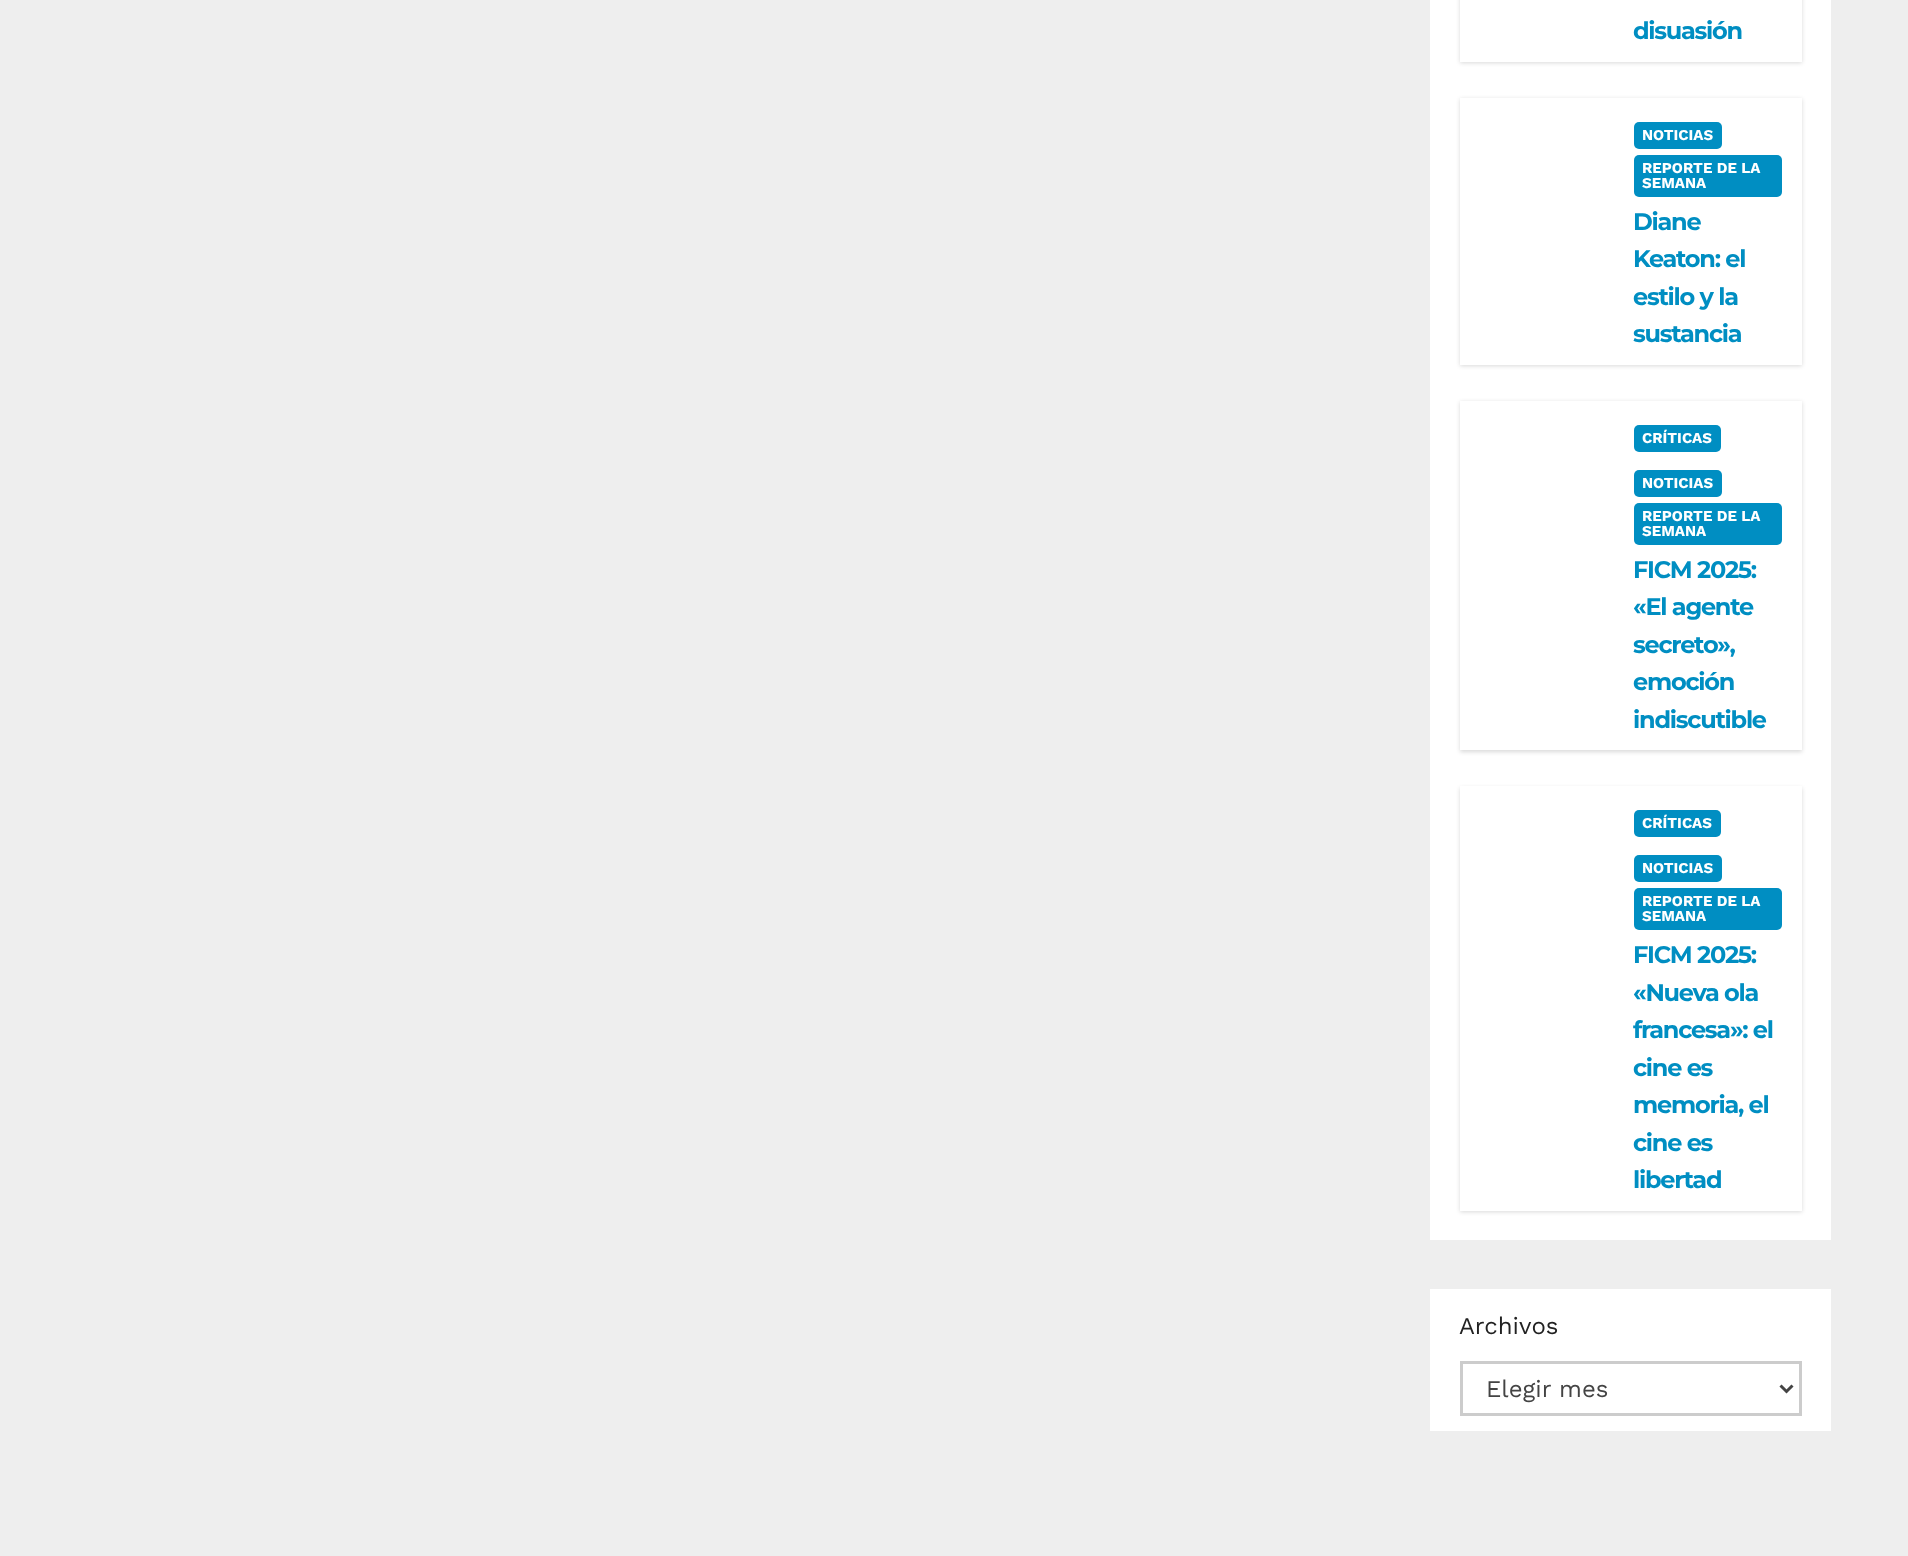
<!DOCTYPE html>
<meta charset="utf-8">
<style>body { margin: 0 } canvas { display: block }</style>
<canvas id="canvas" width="1908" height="1556"></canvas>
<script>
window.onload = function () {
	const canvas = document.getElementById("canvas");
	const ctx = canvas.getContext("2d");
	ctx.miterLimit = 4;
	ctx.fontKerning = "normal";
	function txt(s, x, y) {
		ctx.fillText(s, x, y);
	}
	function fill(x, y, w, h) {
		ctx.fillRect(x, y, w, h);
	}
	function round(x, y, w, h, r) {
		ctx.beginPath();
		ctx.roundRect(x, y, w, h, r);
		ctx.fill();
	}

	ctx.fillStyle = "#EEEEEE";
	fill(0, 0, 1908, 1556);
	ctx.fillStyle = "#FFFFFF";
	fill(1430, 0, 401, 1240);
	ctx.save();
	ctx.beginPath();
	ctx.moveTo(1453, 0);
	ctx.lineTo(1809, 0);
	ctx.lineTo(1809, 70);
	ctx.lineTo(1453, 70);
	ctx.closePath();
	ctx.moveTo(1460, -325);
	ctx.lineTo(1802, -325);
	ctx.lineTo(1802, 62);
	ctx.lineTo(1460, 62);
	ctx.closePath();
	ctx.clip("evenodd");
	ctx.fillStyle = "rgba(0, 0, 0, 0.15)";
	ctx.filter = "blur(2px)";
	ctx.beginPath();
	ctx.rect(1460, -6, 342, 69);
	ctx.fill();
	ctx.filter = "none";
	ctx.restore();
	ctx.save();
	ctx.beginPath();
	ctx.moveTo(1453, 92);
	ctx.lineTo(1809, 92);
	ctx.lineTo(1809, 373);
	ctx.lineTo(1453, 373);
	ctx.closePath();
	ctx.moveTo(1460, 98);
	ctx.lineTo(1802, 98);
	ctx.lineTo(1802, 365);
	ctx.lineTo(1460, 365);
	ctx.closePath();
	ctx.clip("evenodd");
	ctx.fillStyle = "rgba(0, 0, 0, 0.15)";
	ctx.filter = "blur(2px)";
	ctx.beginPath();
	ctx.rect(1460, 99, 342, 267);
	ctx.fill();
	ctx.filter = "none";
	ctx.restore();
	ctx.fillStyle = "#008EC2";
	round(1634, 122, 88, 27, 5);
	round(1634, 155, 148, 42, 5);
	ctx.save();
	ctx.beginPath();
	ctx.moveTo(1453, 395);
	ctx.lineTo(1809, 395);
	ctx.lineTo(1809, 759);
	ctx.lineTo(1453, 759);
	ctx.closePath();
	ctx.moveTo(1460, 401);
	ctx.lineTo(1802, 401);
	ctx.lineTo(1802, 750);
	ctx.lineTo(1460, 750);
	ctx.closePath();
	ctx.clip("evenodd");
	ctx.fillStyle = "rgba(0, 0, 0, 0.15)";
	ctx.filter = "blur(2px)";
	ctx.beginPath();
	ctx.rect(1460, 402, 342, 350);
	ctx.fill();
	ctx.filter = "none";
	ctx.restore();
	round(1634, 425, 87, 27, 5);
	round(1634, 470, 88, 27, 5);
	round(1634, 503, 148, 42, 5);
	ctx.save();
	ctx.beginPath();
	ctx.moveTo(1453, 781);
	ctx.lineTo(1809, 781);
	ctx.lineTo(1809, 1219);
	ctx.lineTo(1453, 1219);
	ctx.closePath();
	ctx.moveTo(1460, 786);
	ctx.lineTo(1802, 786);
	ctx.lineTo(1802, 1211);
	ctx.lineTo(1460, 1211);
	ctx.closePath();
	ctx.clip("evenodd");
	ctx.fillStyle = "rgba(0, 0, 0, 0.15)";
	ctx.filter = "blur(2px)";
	ctx.beginPath();
	ctx.rect(1460, 788, 342, 424);
	ctx.fill();
	ctx.filter = "none";
	ctx.restore();
	round(1634, 810, 87, 27, 5);
	round(1634, 855, 88, 27, 5);
	round(1634, 888, 148, 42, 5);
	ctx.fillStyle = "#FFFFFF";
	fill(1430, 1289, 401, 142);
	ctx.strokeStyle = "#CCCCCC";
	ctx.lineWidth = 3;
	ctx.strokeRect(1461.5, 1362.5, 339, 52);
	ctx.beginPath();
	ctx.moveTo(1780.5, 1385.5);
	ctx.lineTo(1786.5, 1391.5);
	ctx.lineTo(1792.5, 1385.5);
	ctx.strokeStyle = "#444444";
	ctx.stroke();
	ctx.letterSpacing = "-1.25px";
	ctx.font = "bold 24px Montserrat";
	ctx.fillStyle = "#008EC2";
	txt("disuasión", 1633, 39);
	ctx.letterSpacing = "0px";
	ctx.font = "bold 15px Work Sans";
	ctx.fillStyle = "#FFFFFF";
	txt("NOTICIAS", 1642, 140);
	txt("REPORTE DE LA", 1642, 173);
	txt("SEMANA", 1642, 188);
	ctx.letterSpacing = "-1.25px";
	ctx.font = "bold 24px Montserrat";
	ctx.fillStyle = "#008EC2";
	txt("Diane", 1633, 230);
	txt("Keaton: el", 1633, 267);
	txt("estilo y la", 1633, 305);
	txt("sustancia", 1633, 342);
	ctx.letterSpacing = "0px";
	ctx.font = "bold 15px Work Sans";
	ctx.fillStyle = "#FFFFFF";
	txt("CRÍTICAS", 1642, 443);
	txt("NOTICIAS", 1642, 488);
	txt("REPORTE DE LA", 1642, 521);
	txt("SEMANA", 1642, 536);
	ctx.letterSpacing = "-1.25px";
	ctx.font = "bold 24px Montserrat";
	ctx.fillStyle = "#008EC2";
	txt("FICM 2025:", 1633, 578);
	txt("«El agente", 1633, 615);
	txt("secreto»,", 1633, 653);
	txt("emoción", 1633, 690);
	txt("indiscutible", 1633, 728);
	ctx.letterSpacing = "0px";
	ctx.font = "bold 15px Work Sans";
	ctx.fillStyle = "#FFFFFF";
	txt("CRÍTICAS", 1642, 828);
	txt("NOTICIAS", 1642, 873);
	txt("REPORTE DE LA", 1642, 906);
	txt("SEMANA", 1642, 921);
	ctx.letterSpacing = "-1.25px";
	ctx.font = "bold 24px Montserrat";
	ctx.fillStyle = "#008EC2";
	txt("FICM 2025:", 1633, 963);
	txt("«Nueva ola", 1633, 1001);
	txt("francesa»: el", 1633, 1038);
	txt("cine es", 1633, 1076);
	txt("memoria, el", 1633, 1113);
	txt("cine es", 1633, 1151);
	txt("libertad", 1633, 1188);
	ctx.letterSpacing = "0px";
	ctx.font = "24px Work Sans";
	ctx.fillStyle = "#222222";
	txt("Archivos", 1459, 1334);
	ctx.fillStyle = "#444444";
	txt("Elegir mes", 1486, 1397);
};
</script>
